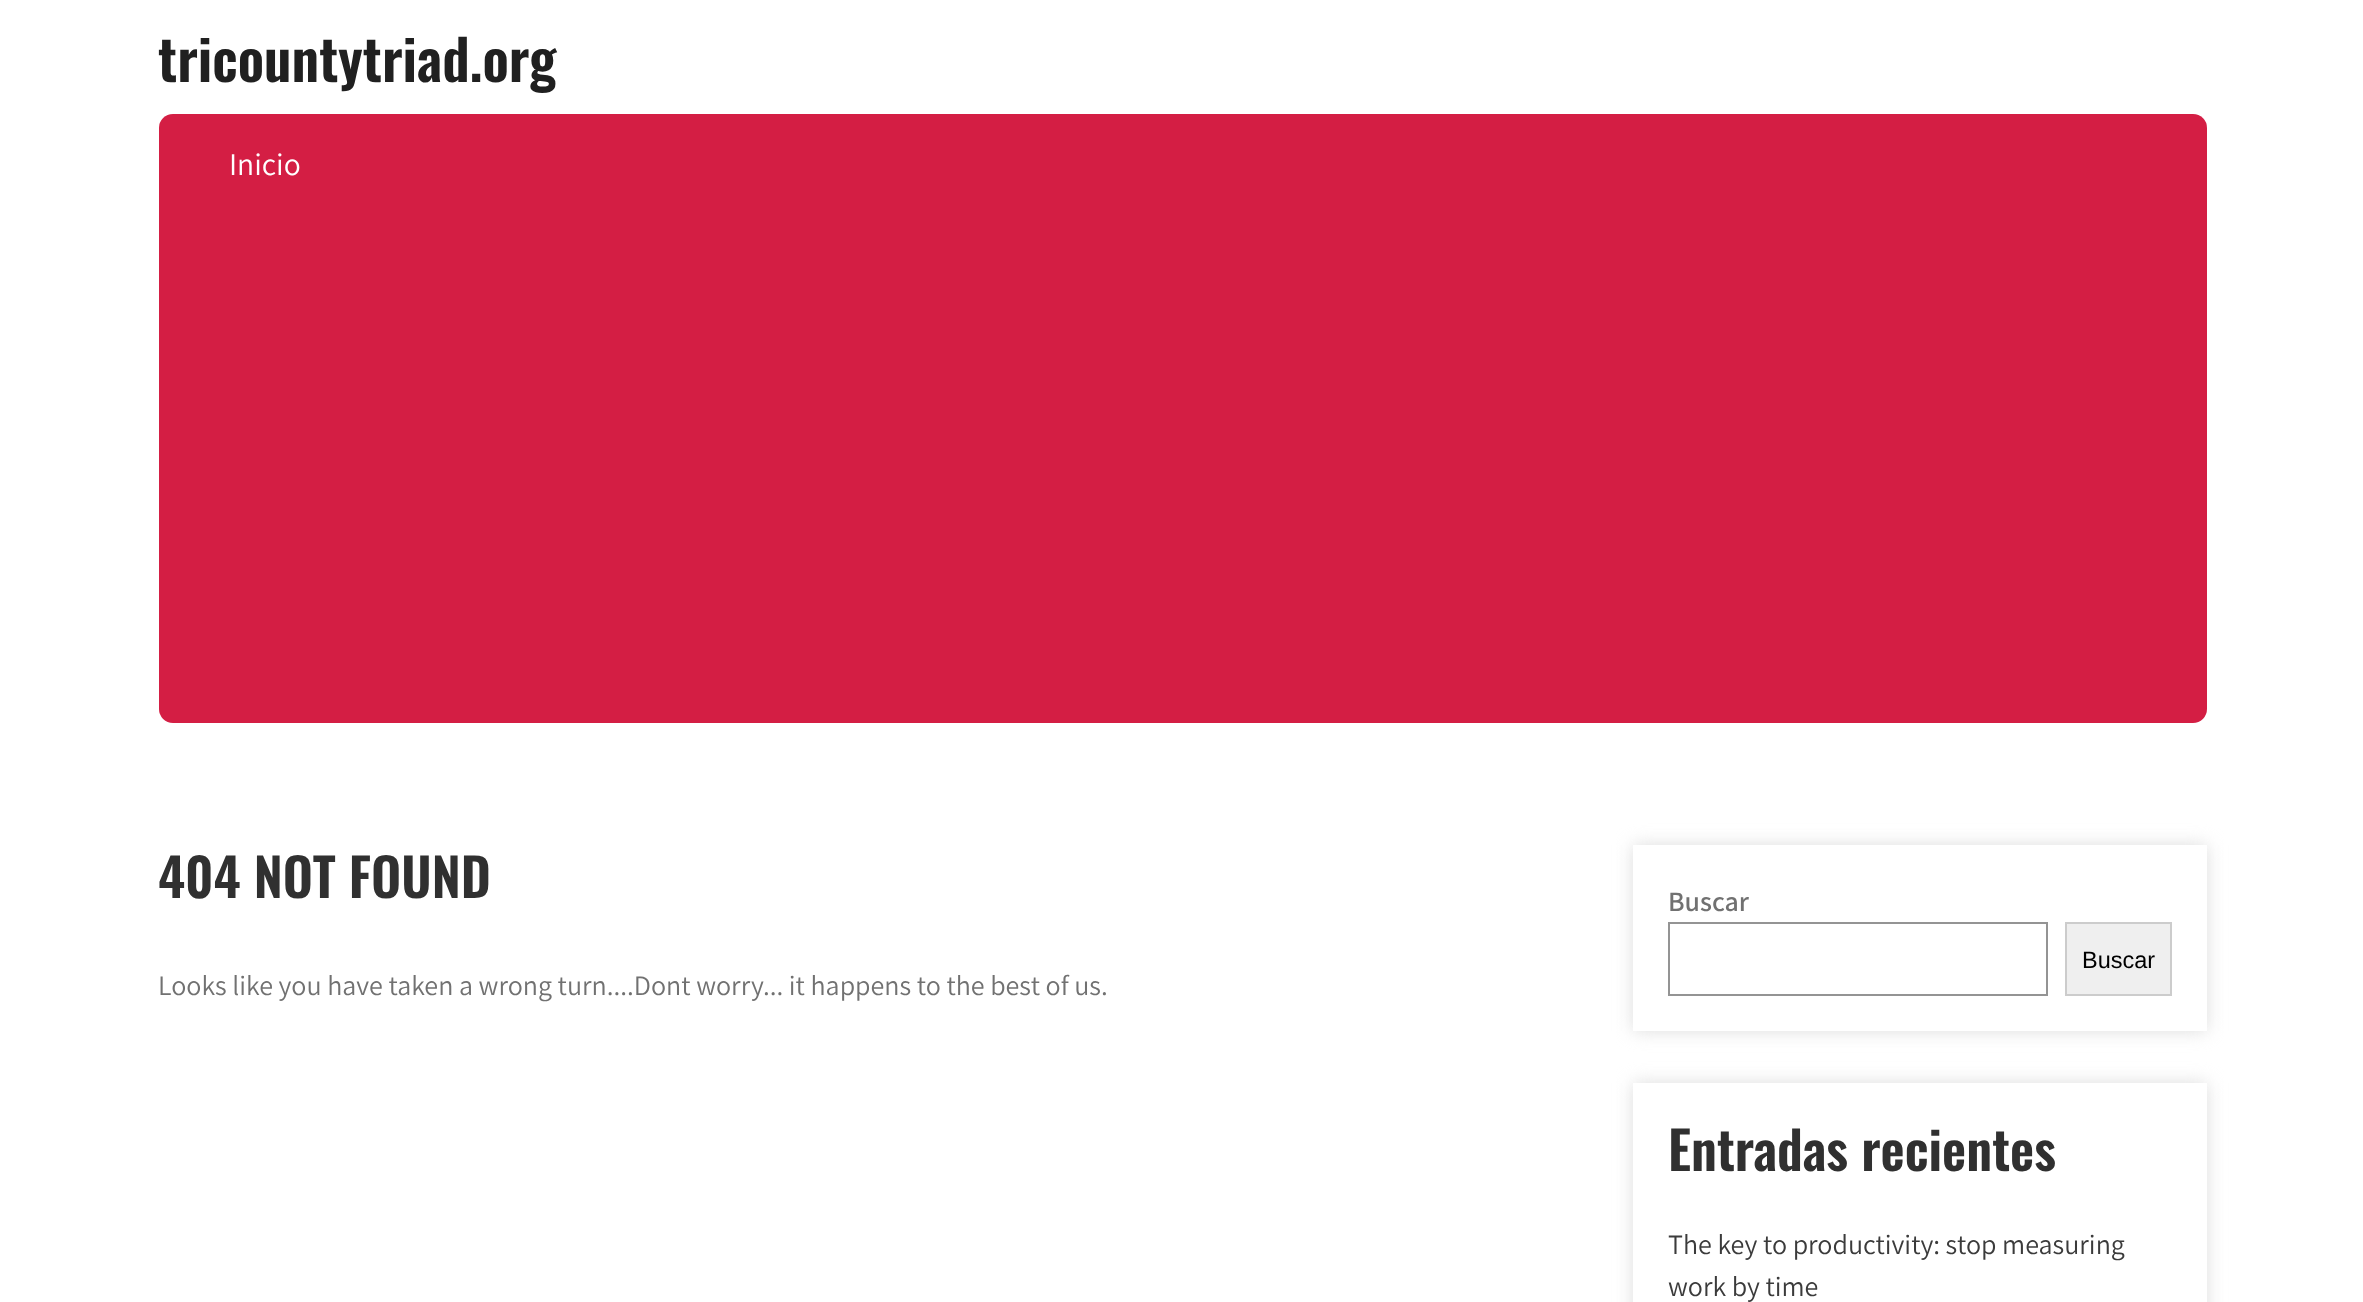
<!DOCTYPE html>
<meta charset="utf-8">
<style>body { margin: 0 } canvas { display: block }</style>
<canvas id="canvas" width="2363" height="1302"></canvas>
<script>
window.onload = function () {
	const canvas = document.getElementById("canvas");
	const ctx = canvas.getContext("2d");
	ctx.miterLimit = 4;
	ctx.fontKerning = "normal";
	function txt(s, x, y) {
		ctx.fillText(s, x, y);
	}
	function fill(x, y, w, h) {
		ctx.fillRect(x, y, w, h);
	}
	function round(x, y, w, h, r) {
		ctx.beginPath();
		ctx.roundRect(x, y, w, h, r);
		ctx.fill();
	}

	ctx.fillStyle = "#FFFFFF";
	fill(0, 0, 2363, 1302);
	ctx.fillStyle = "#D41E44";
	round(159, 114, 2048, 609, 14);
	ctx.fillStyle = "#DDDDDD";
	ctx.filter = "blur(9px)";
	ctx.beginPath();
	ctx.rect(1633, 845, 574, 186);
	ctx.fill();
	ctx.filter = "none";
	ctx.fillStyle = "#FFFFFF";
	fill(1633, 845, 574, 186);
	ctx.strokeStyle = "#949494";
	ctx.lineWidth = 2;
	ctx.strokeRect(1669, 923, 378, 72);
	ctx.fillStyle = "#EFEFEF";
	ctx.beginPath();
	ctx.rect(2066, 923, 105, 72);
	ctx.fill();
	ctx.strokeStyle = "#CCCCCC";
	ctx.stroke();
	ctx.fillStyle = "#DDDDDD";
	ctx.filter = "blur(9px)";
	ctx.beginPath();
	ctx.rect(1633, 1083, 574, 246);
	ctx.fill();
	ctx.filter = "none";
	ctx.fillStyle = "#FFFFFF";
	fill(1633, 1083, 574, 219);
	ctx.font = "600 56px Oswald";
	ctx.fillStyle = "#202020";
	txt("tricountytriad.org", 158, 82);
	ctx.font = "31.5px Assistant";
	ctx.fillStyle = "#FFFFFF";
	txt("Inicio", 229, 175);
	ctx.font = "600 52.5px Oswald";
	ctx.fillStyle = "#303030";
	txt("404 NOT FOUND", 158, 898);
	ctx.font = "28px Assistant";
	ctx.fillStyle = "#717171";
	txt("Looks like you have taken a wrong turn....Dont worry... it happens to the best of us.", 158, 995);
	ctx.font = "600 28px Assistant";
	txt("Buscar", 1668, 911);
	ctx.font = "23.5px Liberation Sans";
	ctx.fillStyle = "#000000";
	txt("Buscar", 2082, 968);
	ctx.font = "600 52.5px Oswald";
	ctx.fillStyle = "#303030";
	txt("Entradas recientes", 1668, 1171);
	ctx.font = "28px Assistant";
	ctx.fillStyle = "#3B3B3B";
	txt("The key to productivity: stop measuring", 1668, 1254);
	txt("work by time", 1668, 1296);
};
</script>
